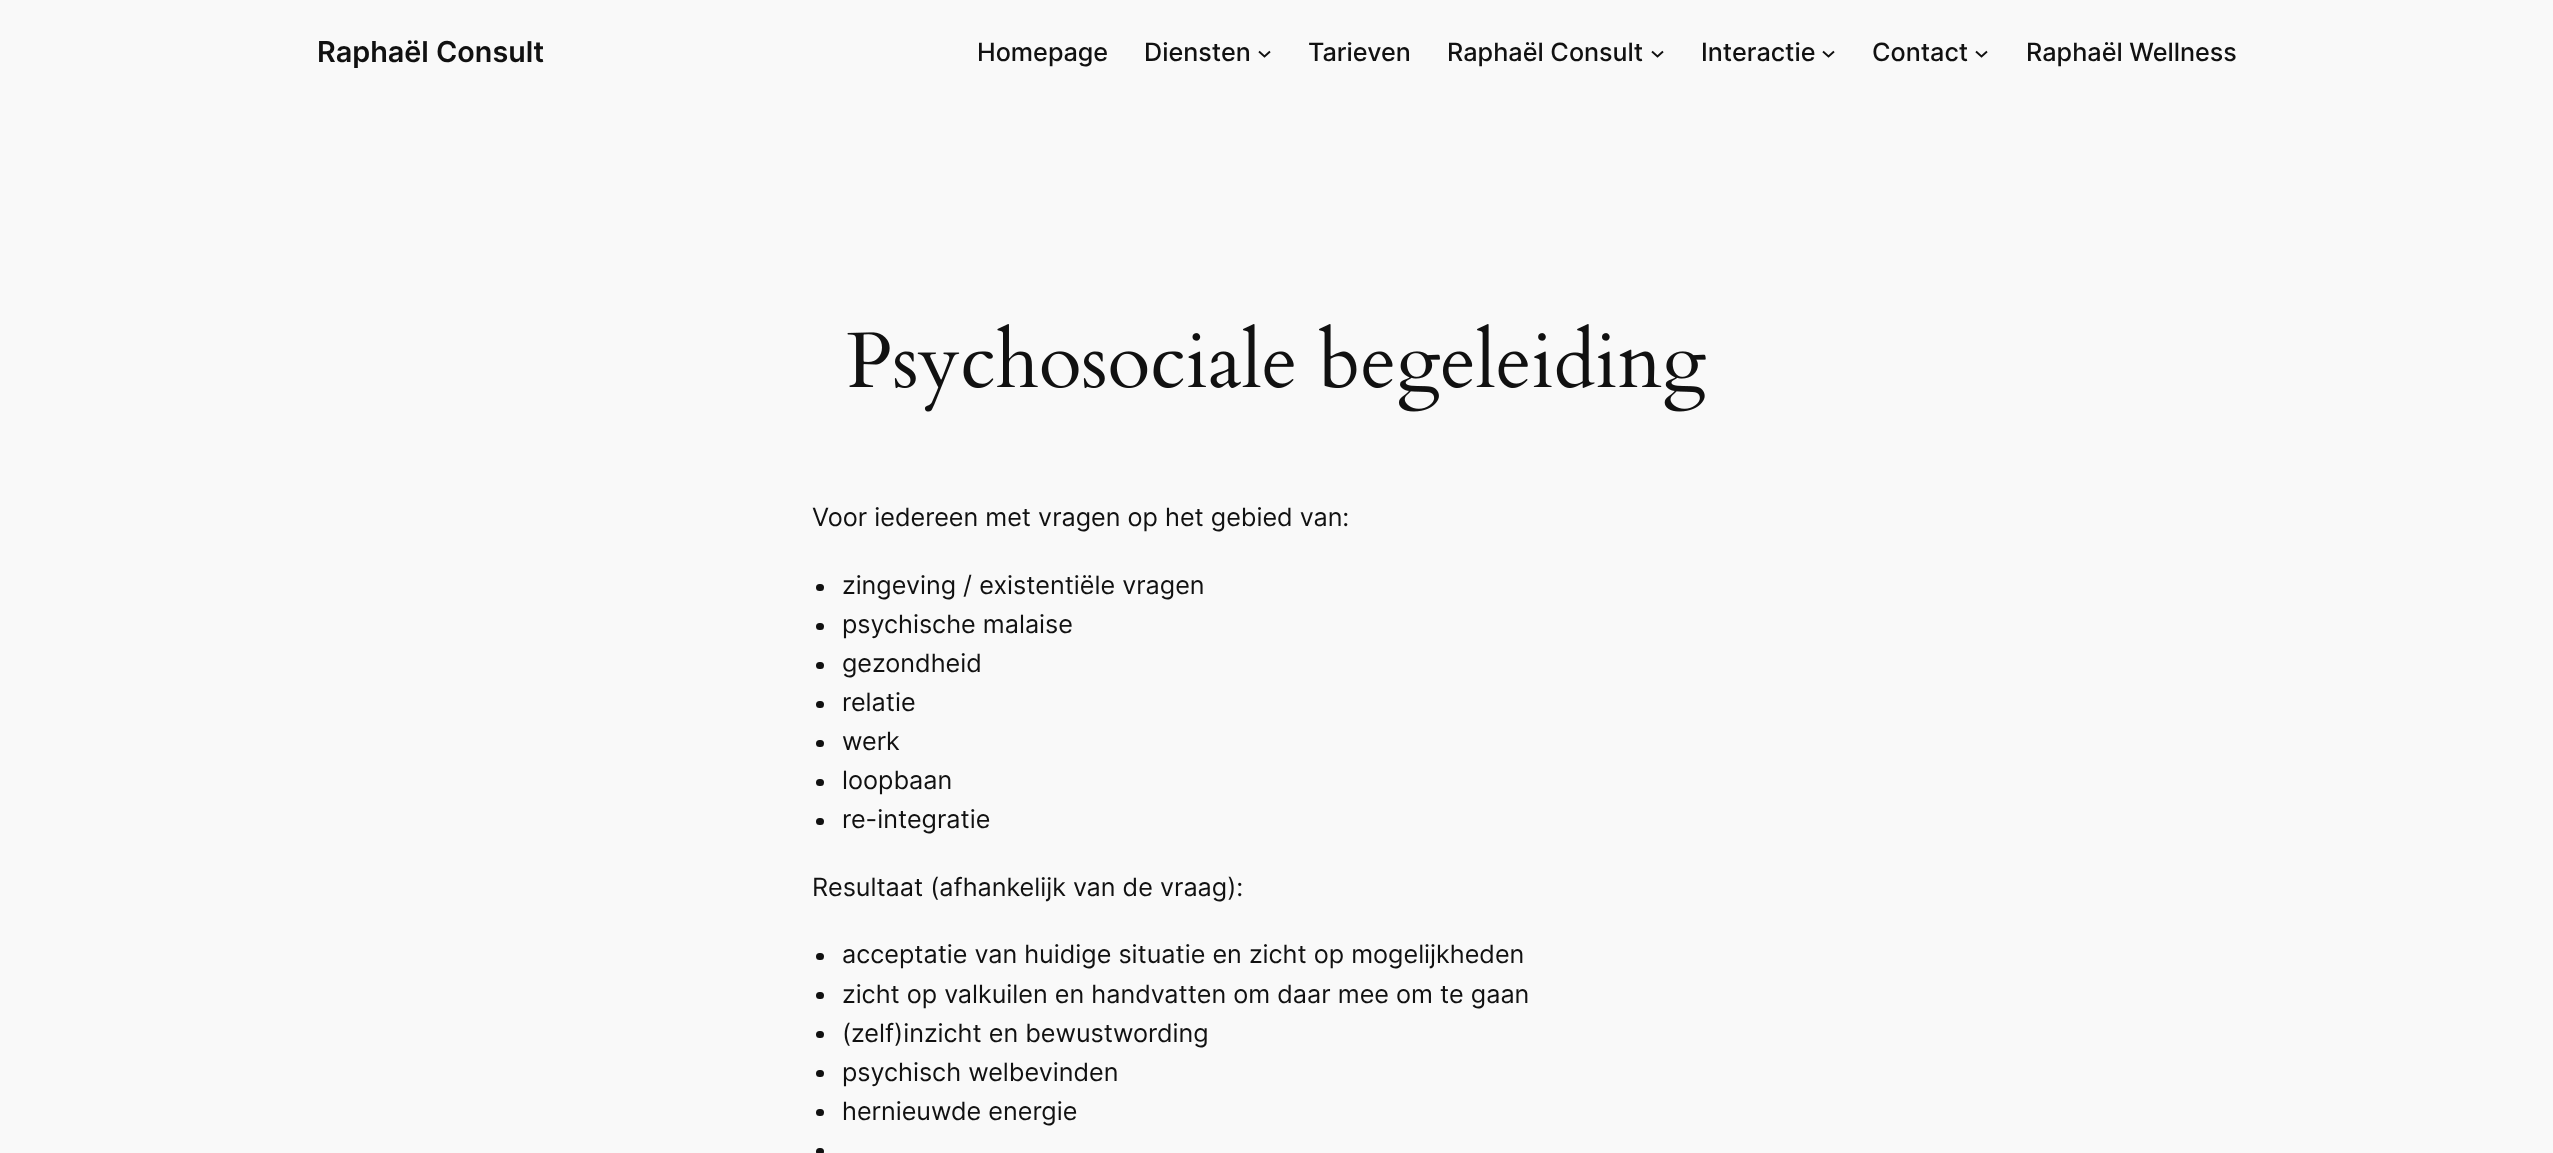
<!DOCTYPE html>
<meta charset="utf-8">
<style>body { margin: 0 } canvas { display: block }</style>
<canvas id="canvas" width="2553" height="1153"></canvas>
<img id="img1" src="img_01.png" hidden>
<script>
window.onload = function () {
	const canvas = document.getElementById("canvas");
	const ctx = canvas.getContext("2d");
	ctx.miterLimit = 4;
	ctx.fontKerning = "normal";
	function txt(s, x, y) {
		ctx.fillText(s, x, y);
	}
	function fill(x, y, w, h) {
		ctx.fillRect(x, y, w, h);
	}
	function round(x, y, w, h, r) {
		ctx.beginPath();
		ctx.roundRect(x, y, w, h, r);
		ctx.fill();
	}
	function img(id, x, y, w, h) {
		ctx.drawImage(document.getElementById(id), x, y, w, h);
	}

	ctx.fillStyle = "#F9F9F9";
	fill(0, 0, 2553, 1153);
	ctx.beginPath();
	ctx.moveTo(1259, 51.5);
	ctx.lineTo(1264.5, 56.5);
	ctx.lineTo(1270, 51.5);
	ctx.strokeStyle = "#111111";
	ctx.lineWidth = 1.9;
	ctx.stroke();
	ctx.beginPath();
	ctx.moveTo(1652, 51.5);
	ctx.lineTo(1657.5, 56.5);
	ctx.lineTo(1663, 51.5);
	ctx.stroke();
	ctx.beginPath();
	ctx.moveTo(1823, 51.5);
	ctx.lineTo(1828.5, 56.5);
	ctx.lineTo(1834, 51.5);
	ctx.stroke();
	ctx.beginPath();
	ctx.moveTo(1976, 51.5);
	ctx.lineTo(1981.5, 56.5);
	ctx.lineTo(1987, 51.5);
	ctx.stroke();
	img("img1", 847, 324, 859, 88);
	ctx.fillStyle = "#111111";
	round(816, 584, 8, 7, 3.5);
	round(816, 623, 8, 7, 3.5);
	round(816, 662, 8, 7, 3.5);
	round(816, 701, 8, 7, 3.5);
	round(816, 740, 8, 7, 3.5);
	round(816, 779, 8, 7, 3.5);
	round(816, 818, 8, 7, 3.5);
	round(816, 953, 8, 7, 3.5);
	round(816, 992, 8, 7, 3.5);
	round(816, 1031, 8, 7, 3.5);
	round(816, 1070, 8, 7, 3.5);
	round(816, 1109, 8, 7, 3.5);
	round(816, 1148, 8, 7, 3.5);
	ctx.font = "600 28.75px Inter";
	txt("Raphaël Consult", 317, 62);
	ctx.font = "500 25.2px Inter";
	txt("Homepage", 977, 61);
	txt("Diensten", 1144, 61);
	txt("Tarieven", 1308, 61);
	txt("Raphaël Consult", 1447, 61);
	txt("Interactie", 1701, 61);
	txt("Contact", 1872, 61);
	txt("Raphaël Wellness", 2026, 61);
	ctx.font = "25.2px Inter";
	txt("Voor iedereen met vragen op het gebied van:", 812, 526);
	txt("zingeving / existentiële vragen", 842, 594);
	txt("psychische malaise", 842, 633);
	txt("gezondheid", 842, 672);
	txt("relatie", 842, 711);
	txt("werk", 842, 750);
	txt("loopbaan", 842, 789);
	txt("re-integratie", 842, 828);
	txt("Resultaat (afhankelijk van de vraag):", 812, 896);
	txt("acceptatie van huidige situatie en zicht op mogelijkheden", 842, 963);
	txt("zicht op valkuilen en handvatten om daar mee om te gaan", 842, 1003);
	txt("(zelf)inzicht en bewustwording", 842, 1042);
	txt("psychisch welbevinden", 842, 1081);
	txt("hernieuwde energie", 842, 1120);
};
</script>
